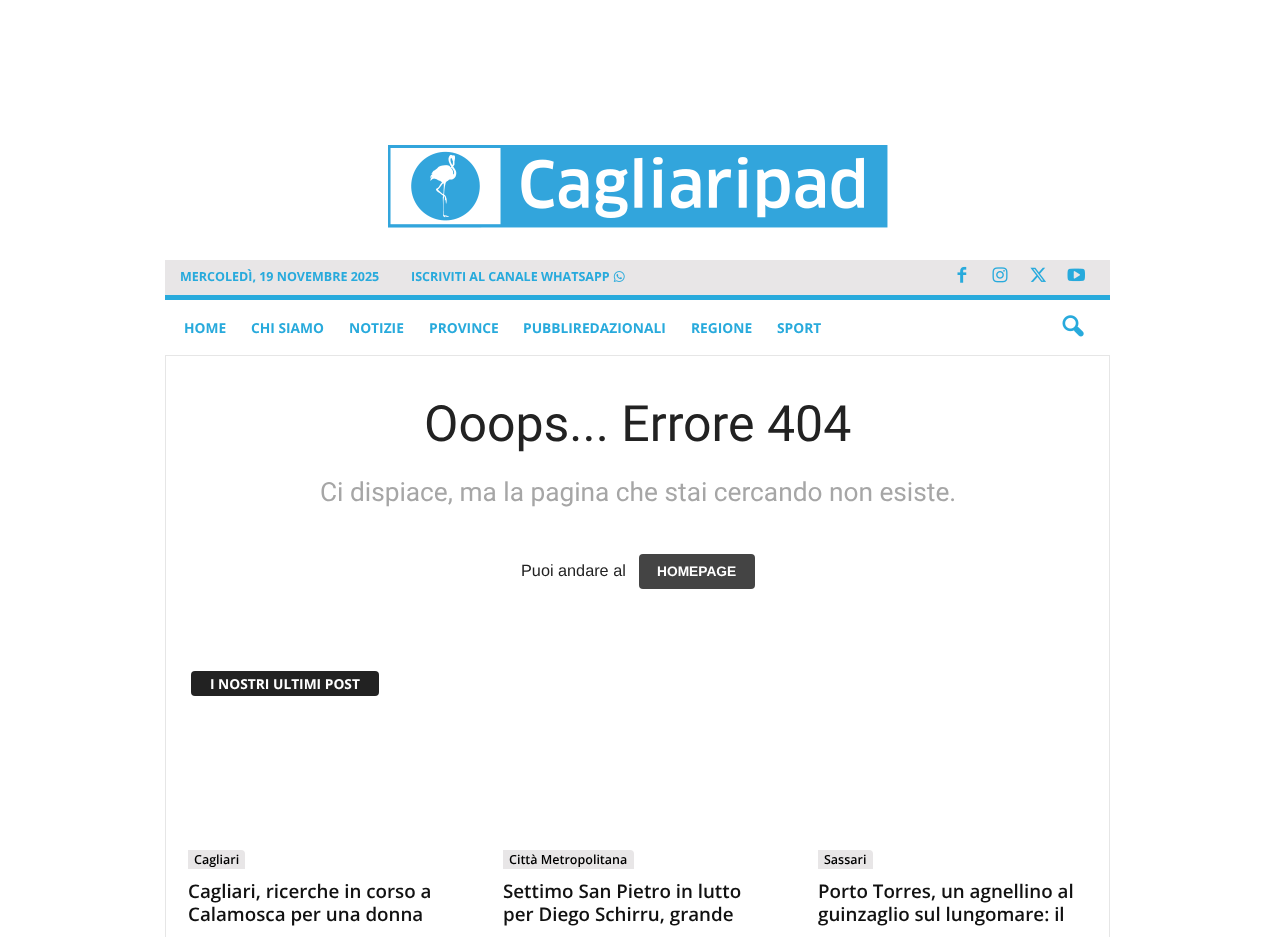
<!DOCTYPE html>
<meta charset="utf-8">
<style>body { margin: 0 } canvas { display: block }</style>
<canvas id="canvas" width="1275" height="937"></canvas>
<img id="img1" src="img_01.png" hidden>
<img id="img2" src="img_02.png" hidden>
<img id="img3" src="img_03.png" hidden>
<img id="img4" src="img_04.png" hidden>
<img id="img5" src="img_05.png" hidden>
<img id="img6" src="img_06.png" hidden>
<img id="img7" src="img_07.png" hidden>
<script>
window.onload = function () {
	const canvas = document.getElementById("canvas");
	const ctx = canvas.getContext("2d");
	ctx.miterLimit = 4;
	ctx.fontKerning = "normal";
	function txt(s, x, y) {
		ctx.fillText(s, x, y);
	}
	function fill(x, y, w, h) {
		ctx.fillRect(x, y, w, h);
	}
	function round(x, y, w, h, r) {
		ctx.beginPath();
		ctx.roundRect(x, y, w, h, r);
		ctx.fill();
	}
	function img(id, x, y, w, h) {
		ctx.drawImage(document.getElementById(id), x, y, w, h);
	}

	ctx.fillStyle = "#FFFFFF";
	fill(0, 0, 1275, 937);
	img("img1", 388, 145, 500, 83);
	ctx.fillStyle = "#E8E6E7";
	fill(165, 260, 945, 35);
	img("img2", 613, 271, 12, 11);
	img("img3", 957, 266, 10, 17);
	img("img4", 992, 267, 16, 16);
	img("img5", 1030, 267, 16, 15);
	img("img6", 1067, 268, 18, 14);
	ctx.fillStyle = "#E6E6E6";
	fill(165, 355, 945, 1);
	ctx.fillStyle = "#28AADC";
	fill(165, 295, 945, 5);
	img("img7", 1062, 315, 22, 22);
	ctx.fillStyle = "#E6E6E6";
	fill(165, 356, 1, 581);
	ctx.fillStyle = "#444444";
	round(639, 554, 116, 35, 4);
	ctx.fillStyle = "#222222";
	round(191, 671, 188, 25, 4);
	ctx.fillStyle = "#E8E6E7";
	ctx.beginPath();
	ctx.roundRect(188, 850, 57, 19, [0, 4, 0, 0]);
	ctx.fill();
	ctx.beginPath();
	ctx.roundRect(503, 850, 131, 19, [0, 4, 0, 0]);
	ctx.fill();
	ctx.beginPath();
	ctx.roundRect(818, 850, 55, 19, [0, 4, 0, 0]);
	ctx.fill();
	ctx.fillStyle = "#E6E6E6";
	fill(1109, 356, 1, 581);
	ctx.font = "bold 12.5px Open Sans";
	ctx.fillStyle = "#28AADC";
	txt("MERCOLEDÌ, 19 NOVEMBRE 2025", 180, 281);
	txt("ISCRIVITI AL CANALE WHATSAPP", 411, 281);
	ctx.font = "bold 13.75px Open Sans";
	txt("HOME", 184, 333);
	txt("CHI SIAMO", 251, 333);
	txt("NOTIZIE", 349, 333);
	txt("PROVINCE", 429, 333);
	txt("PUBBLIREDAZIONALI", 523, 333);
	txt("REGIONE", 691, 333);
	txt("SPORT", 777, 333);
	ctx.font = "50px Roboto";
	ctx.fillStyle = "#222222";
	txt("Ooops... Errore 404", 424, 441);
	ctx.font = "26.25px Roboto";
	ctx.fillStyle = "#A6A6A6";
	txt("Ci dispiace, ma la pagina che stai cercando non esiste.", 320, 501);
	ctx.font = "16.25px Liberation Sans";
	ctx.fillStyle = "#222222";
	txt("Puoi andare al", 521, 576);
	ctx.font = "bold 13.75px Liberation Sans";
	ctx.fillStyle = "#FFFFFF";
	txt("HOMEPAGE", 657, 576);
	ctx.font = "bold 13.75px Open Sans";
	txt("I NOSTRI ULTIMI POST", 210, 689);
	ctx.font = "600 12.5px Open Sans";
	ctx.fillStyle = "#000000";
	txt("Cagliari", 194, 864);
	ctx.font = "600 18.75px Open Sans";
	ctx.fillStyle = "#111111";
	txt("Cagliari, ricerche in corso a", 188, 898);
	txt("Calamosca per una donna", 188, 921);
	ctx.font = "600 12.5px Open Sans";
	ctx.fillStyle = "#000000";
	txt("Città Metropolitana", 509, 864);
	ctx.font = "600 18.75px Open Sans";
	ctx.fillStyle = "#111111";
	txt("Settimo San Pietro in lutto", 503, 898);
	txt("per Diego Schirru, grande", 503, 921);
	ctx.font = "600 12.5px Open Sans";
	ctx.fillStyle = "#000000";
	txt("Sassari", 824, 864);
	ctx.font = "600 18.75px Open Sans";
	ctx.fillStyle = "#111111";
	txt("Porto Torres, un agnellino al", 818, 898);
	txt("guinzaglio sul lungomare: il", 818, 921);
};
</script>
